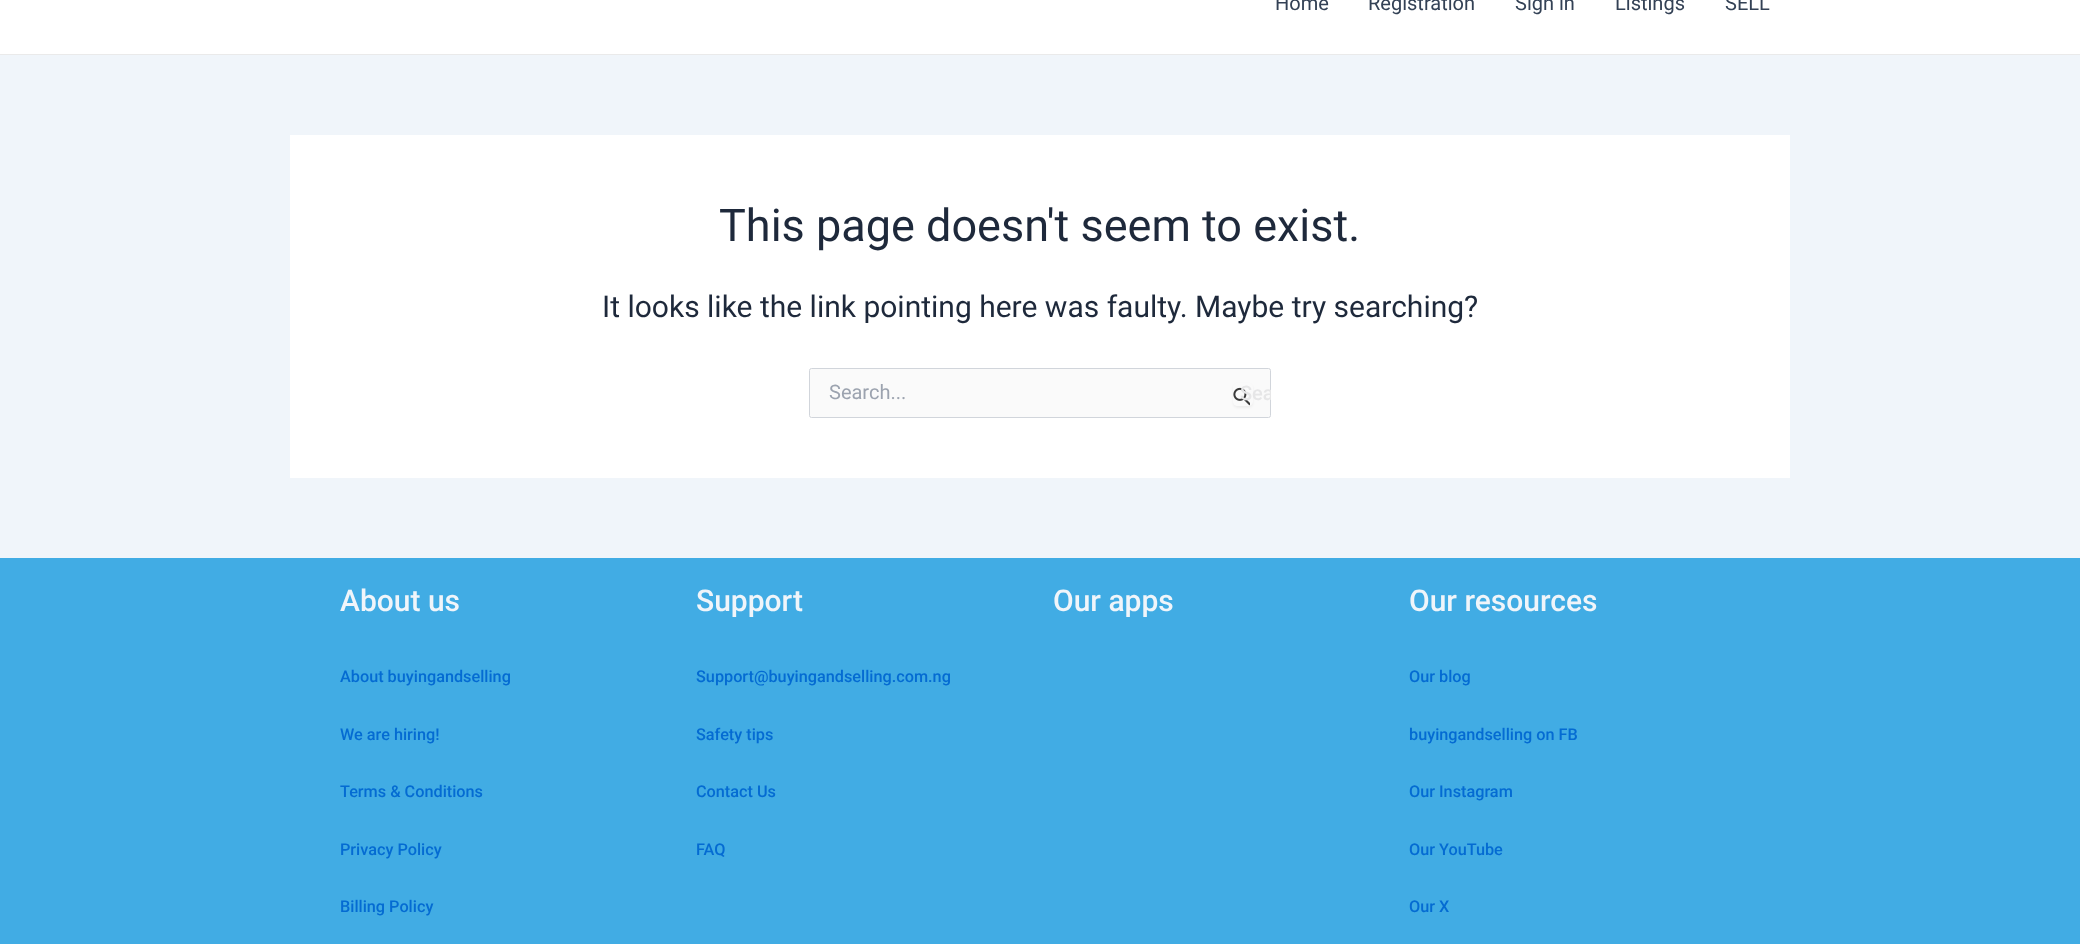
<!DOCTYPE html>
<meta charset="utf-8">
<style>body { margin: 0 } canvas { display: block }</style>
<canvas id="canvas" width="2080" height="944"></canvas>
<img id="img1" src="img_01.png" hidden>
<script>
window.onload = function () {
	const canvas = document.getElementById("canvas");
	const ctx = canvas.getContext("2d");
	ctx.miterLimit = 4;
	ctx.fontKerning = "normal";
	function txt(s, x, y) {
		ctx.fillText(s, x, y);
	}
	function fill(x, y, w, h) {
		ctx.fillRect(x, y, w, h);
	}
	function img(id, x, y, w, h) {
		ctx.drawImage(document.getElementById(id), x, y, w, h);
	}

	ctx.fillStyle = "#F0F5FA";
	fill(0, 0, 2080, 944);
	ctx.fillStyle = "#FFFFFF";
	fill(0, 0, 2080, 54);
	ctx.fillStyle = "#EAEAEA";
	fill(0, 54, 2080, 1);
	ctx.fillStyle = "#FFFFFF";
	fill(290, 135, 1500, 343);
	ctx.fillStyle = "#FAFAFA";
	ctx.beginPath();
	ctx.roundRect(809.5, 368.5, 461, 49, 2);
	ctx.fill();
	ctx.strokeStyle = "#D1D5DB";
	ctx.stroke();
	ctx.save();
	ctx.beginPath();
	ctx.moveTo(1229, 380);
	ctx.lineTo(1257, 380);
	ctx.lineTo(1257, 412);
	ctx.lineTo(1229, 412);
	ctx.closePath();
	ctx.moveTo(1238, 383);
	ctx.lineTo(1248, 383);
	ctx.bezierCurveTo(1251, 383, 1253, 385, 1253, 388);
	ctx.lineTo(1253, 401);
	ctx.bezierCurveTo(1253, 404, 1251, 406, 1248, 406);
	ctx.lineTo(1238, 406);
	ctx.bezierCurveTo(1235, 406, 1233, 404, 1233, 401);
	ctx.lineTo(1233, 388);
	ctx.bezierCurveTo(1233, 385, 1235, 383, 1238, 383);
	ctx.closePath();
	ctx.clip("evenodd");
	ctx.fillStyle = "rgba(0, 0, 0, 0.05)";
	ctx.filter = "blur(1px)";
	ctx.beginPath();
	ctx.roundRect(1233, 384, 20, 24, 5);
	ctx.fill();
	ctx.filter = "none";
	ctx.restore();
	img("img1", 1233, 387, 17, 19);
	ctx.fillStyle = "#41ACE4";
	fill(0, 558, 2080, 386);
	ctx.font = "20px Roboto";
	ctx.fillStyle = "#334155";
	txt("Home", 1275, 10);
	txt("Registration", 1368, 10);
	txt("Sign in", 1515, 10);
	txt("Listings", 1615, 10);
	txt("SELL", 1725, 10);
	ctx.font = "45px Roboto";
	ctx.fillStyle = "#1E293B";
	txt("This page doesn't seem to exist.", 719, 241);
	ctx.font = "30px Roboto";
	txt("It looks like the link pointing here was faulty. Maybe try searching?", 602, 317);
	ctx.font = "20px Roboto";
	ctx.fillStyle = "#9CA3AF";
	txt("Search...", 829, 399);
	ctx.save();
	ctx.beginPath();
	ctx.roundRect(1215, 368, 56, 52, 2.5);
	ctx.clip();
	ctx.font = "500 20px Roboto";
	ctx.fillStyle = "#E6E6E7";
	txt("Sea", 1240, 400);
	ctx.restore();
	ctx.font = "500 30px Roboto";
	ctx.fillStyle = "#F0F5FA";
	txt("About us", 340, 611);
	ctx.font = "500 16.25px Roboto";
	ctx.fillStyle = "#046BD2";
	txt("About buyingandselling", 340, 682);
	txt("We are hiring!", 340, 740);
	txt("Terms & Conditions", 340, 797);
	txt("Privacy Policy", 340, 855);
	txt("Billing Policy", 340, 912);
	ctx.font = "500 30px Roboto";
	ctx.fillStyle = "#F0F5FA";
	txt("Support", 696, 611);
	ctx.font = "500 16.25px Roboto";
	ctx.fillStyle = "#046BD2";
	txt("Support@buyingandselling.com.ng", 696, 682);
	txt("Safety tips", 696, 740);
	txt("Contact Us", 696, 797);
	txt("FAQ", 696, 855);
	ctx.font = "500 30px Roboto";
	ctx.fillStyle = "#F0F5FA";
	txt("Our apps", 1053, 611);
	txt("Our resources", 1409, 611);
	ctx.font = "500 16.25px Roboto";
	ctx.fillStyle = "#046BD2";
	txt("Our blog", 1409, 682);
	txt("buyingandselling on FB", 1409, 740);
	txt("Our Instagram", 1409, 797);
	txt("Our YouTube", 1409, 855);
	txt("Our X", 1409, 912);
};
</script>
